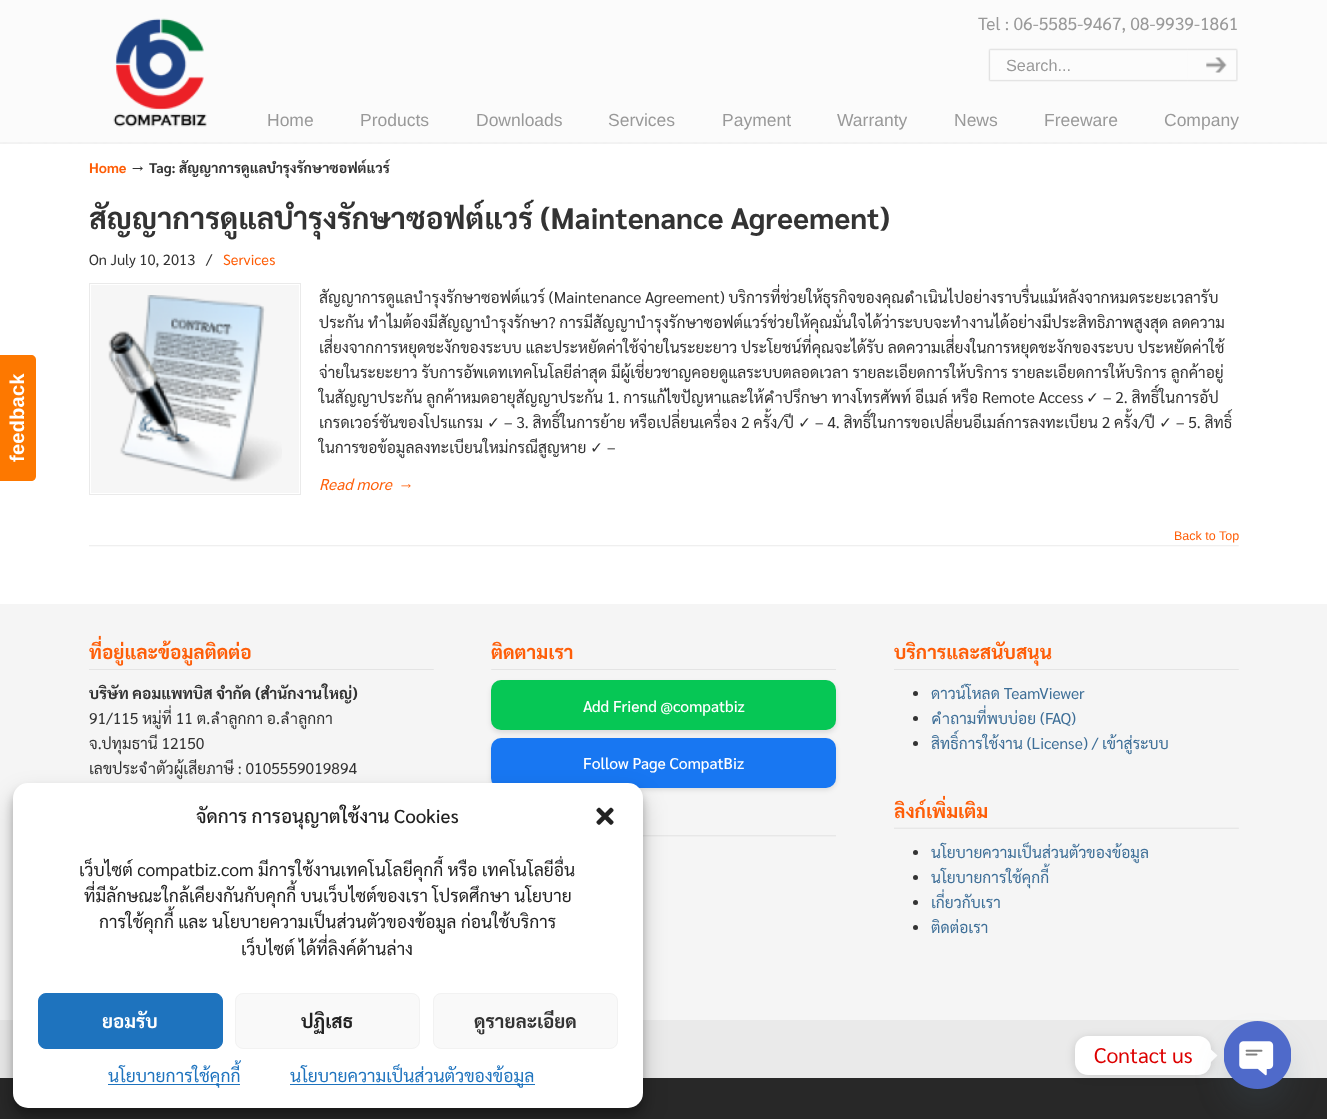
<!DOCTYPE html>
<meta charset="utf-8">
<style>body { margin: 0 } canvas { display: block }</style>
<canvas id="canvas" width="1327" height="1119"></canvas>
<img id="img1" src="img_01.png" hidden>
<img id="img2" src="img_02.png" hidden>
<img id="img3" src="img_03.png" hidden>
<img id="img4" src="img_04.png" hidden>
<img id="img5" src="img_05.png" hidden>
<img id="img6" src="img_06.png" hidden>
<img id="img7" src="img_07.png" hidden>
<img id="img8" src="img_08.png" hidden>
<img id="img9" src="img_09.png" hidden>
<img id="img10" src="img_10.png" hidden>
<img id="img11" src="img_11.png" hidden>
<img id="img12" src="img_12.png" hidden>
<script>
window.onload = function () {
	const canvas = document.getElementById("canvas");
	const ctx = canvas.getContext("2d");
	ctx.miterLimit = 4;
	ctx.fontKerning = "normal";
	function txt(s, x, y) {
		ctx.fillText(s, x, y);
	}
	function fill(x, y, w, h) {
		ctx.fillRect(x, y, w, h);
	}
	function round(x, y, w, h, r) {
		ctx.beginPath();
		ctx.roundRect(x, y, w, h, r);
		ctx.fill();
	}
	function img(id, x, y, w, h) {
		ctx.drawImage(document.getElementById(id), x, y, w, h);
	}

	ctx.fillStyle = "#282828";
	fill(0, 0, 1327, 1119);
	ctx.fillStyle = "#FFFFFF";
	fill(0, 144, 1327, 460);
	ctx.fillStyle = "#FD7800";
	ctx.beginPath();
	ctx.moveTo(-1, 481);
	ctx.lineTo(-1, 355);
	ctx.lineTo(31, 355);
	ctx.bezierCurveTo(34, 355, 36, 357, 36, 360);
	ctx.lineTo(36, 476);
	ctx.bezierCurveTo(36, 479, 34, 481, 31, 481);
	ctx.closePath();
	ctx.fill();
	ctx.fillStyle = "#FBFBFB";
	fill(0, 0, 1327, 144);
	img("img1", 113, 18, 94, 109);
	img("img2", 988, 48, 200, 34);
	img("img3", 1187, 48, 51, 34);
	img("img4", 0, 142, 1327, 2);
	ctx.fillStyle = "#F6F6F6";
	fill(91, 285, 208, 208);
	ctx.strokeStyle = "#EAEAEA";
	ctx.strokeRect(89.5, 283.5, 211, 211);
	img("img5", 108, 295, 174, 187);
	img("img6", 89, 545, 1150, 2);
	ctx.fillStyle = "#F5F5F5";
	fill(0, 604, 1327, 416);
	img("img7", 89, 669, 345, 1);
	img("img8", 491, 669, 345, 1);
	ctx.fillStyle = "rgba(0, 0, 0, 0.1)";
	ctx.filter = "blur(2.5px)";
	ctx.beginPath();
	ctx.roundRect(491, 683, 345, 50, 10);
	ctx.fill();
	ctx.filter = "none";
	ctx.fillStyle = "#06C755";
	round(491, 680, 345, 50, 10);
	ctx.fillStyle = "rgba(0, 0, 0, 0.1)";
	ctx.filter = "blur(2.5px)";
	ctx.beginPath();
	ctx.roundRect(491, 740, 345, 50, 10);
	ctx.fill();
	ctx.filter = "none";
	ctx.fillStyle = "#1877F2";
	round(491, 738, 345, 50, 10);
	img("img9", 643, 835, 193, 2);
	img("img7", 894, 669, 345, 1);
	ctx.fillStyle = "#333333";
	ctx.beginPath();
	ctx.arc(915.5, 693.5, 2.5, 0, Math.PI * 2);
	ctx.fill();
	ctx.beginPath();
	ctx.arc(915.5, 718.5, 2.5, 0, Math.PI * 2);
	ctx.fill();
	ctx.beginPath();
	ctx.arc(915.5, 743.5, 2.5, 0, Math.PI * 2);
	ctx.fill();
	img("img10", 894, 827, 345, 2);
	ctx.beginPath();
	ctx.arc(915.5, 852.5, 2.5, 0, Math.PI * 2);
	ctx.fill();
	ctx.beginPath();
	ctx.arc(915.5, 877.5, 2.5, 0, Math.PI * 2);
	ctx.fill();
	ctx.beginPath();
	ctx.arc(915.5, 902.5, 2.5, 0, Math.PI * 2);
	ctx.fill();
	ctx.beginPath();
	ctx.arc(915.5, 927.5, 2.5, 0, Math.PI * 2);
	ctx.fill();
	ctx.fillStyle = "#EAEAEA";
	fill(0, 1020, 1327, 58);
	ctx.fillStyle = "rgba(0, 0, 0, 0.23)";
	ctx.filter = "blur(4px)";
	ctx.beginPath();
	ctx.roundRect(13, 790, 630, 325, 15);
	ctx.fill();
	ctx.filter = "none";
	ctx.fillStyle = "rgba(0, 0, 0, 0.19)";
	ctx.filter = "blur(12.5px)";
	ctx.beginPath();
	ctx.roundRect(13, 795, 630, 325, 15);
	ctx.fill();
	ctx.filter = "none";
	ctx.fillStyle = "#FFFFFF";
	round(13, 783, 630, 325, 15);
	img("img11", 596, 807, 18, 18);
	ctx.fillStyle = "#1E73BE";
	ctx.beginPath();
	ctx.roundRect(38.5, 993.5, 184, 55, 7.5);
	ctx.fill();
	ctx.strokeStyle = "#1E73BE";
	ctx.stroke();
	ctx.fillStyle = "#F9F9F9";
	ctx.beginPath();
	ctx.roundRect(235.5, 993.5, 184, 55, 7.5);
	ctx.fill();
	ctx.strokeStyle = "#F2F2F2";
	ctx.stroke();
	ctx.beginPath();
	ctx.roundRect(433.5, 993.5, 184, 55, 7.5);
	ctx.fill();
	ctx.stroke();
	ctx.fillStyle = "#1E73BE";
	fill(108, 1084, 132, 1);
	fill(290, 1084, 245, 1);
	ctx.fillStyle = "rgba(0, 0, 0, 0.15)";
	ctx.filter = "blur(5px)";
	ctx.beginPath();
	ctx.roundRect(1075, 1038, 136, 38, 13);
	ctx.fill();
	ctx.filter = "none";
	ctx.fillStyle = "#FFFFFF";
	round(1075, 1036, 136, 39, 13);
	ctx.beginPath();
	ctx.moveTo(1211, 1062);
	ctx.lineTo(1211, 1049.5);
	ctx.lineTo(1217.5, 1055.5);
	ctx.closePath();
	ctx.fill();
	ctx.fillStyle = "rgba(73, 104, 126, 0.16)";
	ctx.filter = "blur(15px)";
	ctx.beginPath();
	ctx.roundRect(1224, 1041, 67, 68, 33.5);
	ctx.fill();
	ctx.filter = "none";
	img("img12", 1224, 1021, 67, 68);
	ctx.letterSpacing = "0.25px";
	ctx.font = "bold 20px Liberation Sans";
	ctx.fillStyle = "#FFFFFF";
	ctx.save();
	ctx.translate(24, 462);
	ctx.rotate(-90 * Math.PI / 180);
	ctx.fillText("feedback", 0, 0);
	ctx.restore();
	ctx.letterSpacing = "0px";
	ctx.font = "17.5px Sarabun";
	ctx.fillStyle = "#999999";
	txt("Tel : 06-5585-9467, 08-9939-1861", 978, 30);
	ctx.font = "16.25px Liberation Sans";
	txt("Search...", 1006, 71);
	ctx.font = "17.5px Liberation Sans";
	txt("Home", 267, 126);
	txt("Products", 360, 126);
	txt("Downloads", 476, 126);
	txt("Services", 608, 126);
	txt("Payment", 722, 126);
	txt("Warranty", 837, 126);
	txt("News", 954, 126);
	txt("Freeware", 1044, 126);
	txt("Company", 1164, 126);
	ctx.font = "bold 14.1px Sarabun";
	ctx.fillStyle = "#FE5E08";
	txt("Home", 89, 173);
	ctx.font = "bold 17px Sarabun";
	ctx.fillStyle = "#333333";
	txt("→", 130, 173);
	ctx.font = "bold 14.1px Sarabun";
	txt("Tag: สัญญาการดูแลบำรุงรักษาซอฟต์แวร์", 149, 173);
	ctx.font = "bold 29.7px Sarabun";
	txt("สัญญาการดูแลบำรุงรักษาซอฟต์แวร์ (Maintenance Agreement)", 89, 229);
	ctx.font = "14.75px Sarabun";
	txt("On July 10, 2013", 89, 265);
	txt("/", 206, 265);
	ctx.fillStyle = "#FE5E08";
	txt("Services", 223, 265);
	ctx.font = "15.62px Sarabun";
	ctx.fillStyle = "#333333";
	txt("สัญญาการดูแลบำรุงรักษาซอฟต์แวร์ (Maintenance Agreement) บริการที่ช่วยให้ธุรกิจของคุณดำเนินไปอย่างราบรื่นแม้หลังจากหมดระยะเวลารับ", 319, 303);
	txt("ประกัน ทำไมต้องมีสัญญาบำรุงรักษา? การมีสัญญาบำรุงรักษาซอฟต์แวร์ช่วยให้คุณมั่นใจได้ว่าระบบจะทำงานได้อย่างมีประสิทธิภาพสูงสุด ลดความ", 319, 328);
	txt("เสี่ยงจากการหยุดชะงักของระบบ และประหยัดค่าใช้จ่ายในระยะยาว ประโยชน์ที่คุณจะได้รับ ลดความเสี่ยงในการหยุดชะงักของระบบ ประหยัดค่าใช้", 319, 353);
	txt("จ่ายในระยะยาว รับการอัพเดทเทคโนโลยีล่าสุด มีผู้เชี่ยวชาญคอยดูแลระบบตลอดเวลา รายละเอียดการให้บริการ รายละเอียดการให้บริการ ลูกค้าอยู่", 319, 378);
	txt("ในสัญญาประกัน ลูกค้าหมดอายุสัญญาประกัน 1. การแก้ไขปัญหาและให้คำปรึกษา ทางโทรศัพท์ อีเมล์ หรือ Remote Access", 319, 403);
	ctx.font = "15.62px DejaVu Sans";
	txt("✓", 1086, 403);
	ctx.font = "15.62px Sarabun";
	txt("– 2. สิทธิ์ในการอัป", 1103, 403);
	txt("เกรดเวอร์ชันของโปรแกรม", 319, 428);
	ctx.font = "15.62px DejaVu Sans";
	txt("✓", 487, 428);
	ctx.font = "15.62px Sarabun";
	txt("– 3. สิทธิ์ในการย้าย หรือเปลี่ยนเครื่อง 2 ครั้ง/ปี", 504, 428);
	ctx.font = "15.62px DejaVu Sans";
	txt("✓", 798, 428);
	ctx.font = "15.62px Sarabun";
	txt("– 4. สิทธิ์ในการขอเปลี่ยนอีเมล์การลงทะเบียน 2 ครั้ง/ปี", 815, 428);
	ctx.font = "15.62px DejaVu Sans";
	txt("✓", 1159, 428);
	ctx.font = "15.62px Sarabun";
	txt("– 5. สิทธิ์", 1176, 428);
	txt("ในการขอข้อมูลลงทะเบียนใหม่กรณีสูญหาย", 319, 453);
	ctx.font = "15.62px DejaVu Sans";
	txt("✓", 590, 453);
	ctx.font = "15.62px Sarabun";
	txt("–", 607, 453);
	ctx.font = "italic 15.62px Sarabun";
	ctx.fillStyle = "#FE5E08";
	txt("Read more", 319, 490);
	ctx.font = "15.62px Sarabun";
	txt("→", 399, 490);
	ctx.font = "12.5px Liberation Sans";
	txt("Back to Top", 1174, 540);
	ctx.font = "bold 19px Sarabun";
	txt("ที่อยู่และข้อมูลติดต่อ", 89, 659);
	ctx.font = "bold 15.62px Sarabun";
	ctx.fillStyle = "#333333";
	txt("บริษัท คอมแพทบิส จำกัด (สำนักงานใหญ่)", 89, 699);
	ctx.font = "15.62px Sarabun";
	txt("91/115 หมู่ที่ 11 ต.ลำลูกกา อ.ลำลูกกา", 89, 724);
	txt("จ.ปทุมธานี 12150", 89, 749);
	txt("เลขประจำตัวผู้เสียภาษี : 0105559019894", 89, 774);
	ctx.font = "bold 19px Sarabun";
	ctx.fillStyle = "#FE5E08";
	txt("ติดตามเรา", 491, 659);
	ctx.font = "500 15.62px Sarabun";
	ctx.fillStyle = "#FFFFFF";
	txt("Add Friend @compatbiz", 583, 712);
	txt("Follow Page CompatBiz", 583, 769);
	ctx.font = "bold 19px Sarabun";
	ctx.fillStyle = "#FE5E08";
	txt("บริการและสนับสนุน", 894, 659);
	ctx.font = "15.62px Sarabun";
	ctx.fillStyle = "#3D6E97";
	txt("ดาวน์โหลด TeamViewer", 931, 699);
	txt("คำถามที่พบบ่อย (FAQ)", 931, 724);
	txt("สิทธิ์การใช้งาน (License) / เข้าสู่ระบบ", 931, 749);
	ctx.font = "bold 19px Sarabun";
	ctx.fillStyle = "#FE5E08";
	txt("ลิงก์เพิ่มเติม", 894, 818);
	ctx.font = "15.62px Sarabun";
	ctx.fillStyle = "#3D6E97";
	txt("นโยบายความเป็นส่วนตัวของข้อมูล", 931, 858);
	txt("นโยบายการใช้คุกกี้", 931, 883);
	txt("เกี่ยวกับเรา", 931, 908);
	txt("ติดต่อเรา", 931, 933);
	ctx.font = "500 18.75px Sarabun";
	ctx.fillStyle = "#222222";
	txt("จัดการ การอนุญาตใช้งาน Cookies", 196, 823);
	ctx.save();
	ctx.beginPath();
	ctx.rect(38, 856, 580, 112);
	ctx.clip();
	ctx.font = "17.5px Sarabun";
	txt("เว็บไซต์ compatbiz.com มีการใช้งานเทคโนโลยีคุกกี้ หรือ เทคโนโลยีอื่น", 79, 876);
	ctx.restore();
	ctx.font = "17.5px Sarabun";
	txt("ที่มีลักษณะใกล้เคียงกันกับคุกกี้ บนเว็บไซต์ของเรา โปรดศึกษา นโยบาย", 84, 902);
	txt("การใช้คุกกี้ และ นโยบายความเป็นส่วนตัวของข้อมูล ก่อนใช้บริการ", 99, 928);
	txt("เว็บไซต์ ได้ที่ลิงค์ด้านล่าง", 241, 955);
	ctx.font = "bold 18.75px Sarabun";
	ctx.fillStyle = "#FFFFFF";
	txt("ยอมรับ", 102, 1028);
	ctx.fillStyle = "#222222";
	txt("ปฏิเสธ", 301, 1028);
	ctx.fillStyle = "#333333";
	txt("ดูรายละเอียด", 474, 1028);
	ctx.font = "17.5px Sarabun";
	ctx.fillStyle = "#1E73BE";
	txt("นโยบายการใช้คุกกี้", 108, 1082);
	txt("นโยบายความเป็นส่วนตัวของข้อมูล", 290, 1082);
	ctx.font = "21.25px Sarabun";
	ctx.fillStyle = "#DD0000";
	txt("Contact us", 1094, 1063);
};
</script>
